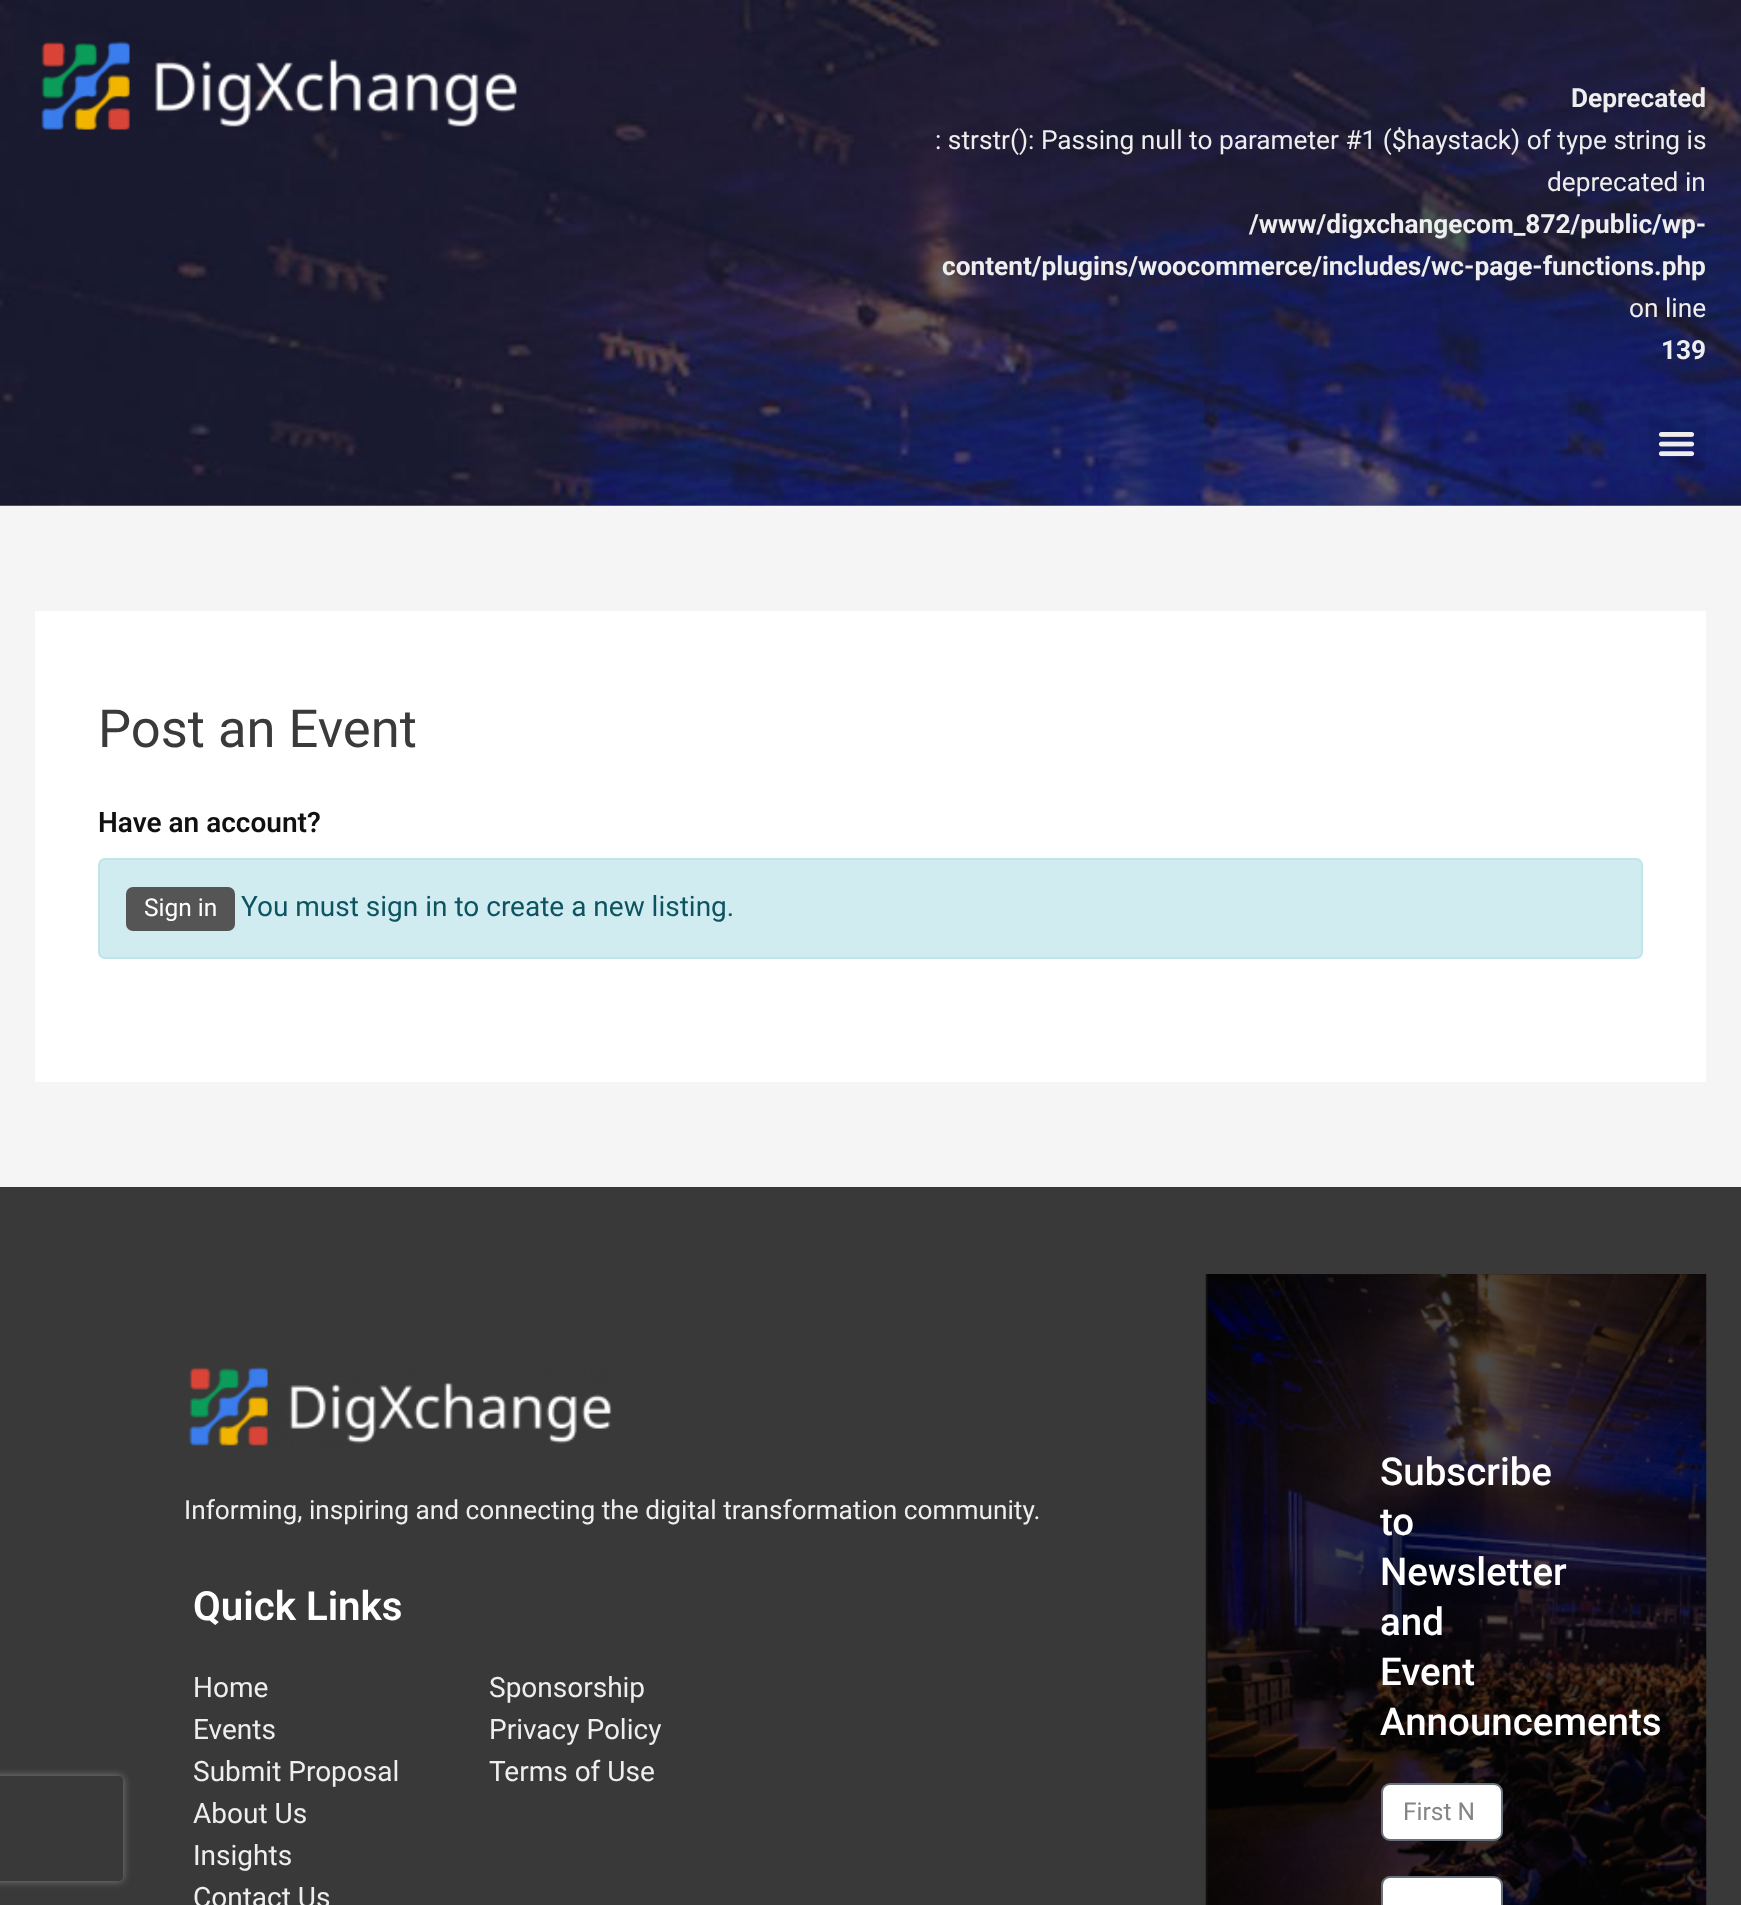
<!DOCTYPE html>
<meta charset="utf-8">
<style>body { margin: 0 } canvas { display: block }</style>
<canvas id="canvas" width="1741" height="1905"></canvas>
<img id="img1" src="img_01.png" hidden>
<img id="img2" src="img_02.png" hidden>
<img id="img3" src="img_03.png" hidden>
<img id="img4" src="img_04.png" hidden>
<img id="img5" src="img_05.png" hidden>
<script>
window.onload = function () {
	const canvas = document.getElementById("canvas");
	const ctx = canvas.getContext("2d");
	ctx.miterLimit = 4;
	ctx.fontKerning = "normal";
	function txt(s, x, y) {
		ctx.fillText(s, x, y);
	}
	function fill(x, y, w, h) {
		ctx.fillRect(x, y, w, h);
	}
	function round(x, y, w, h, r) {
		ctx.beginPath();
		ctx.roundRect(x, y, w, h, r);
		ctx.fill();
	}
	function img(id, x, y, w, h) {
		ctx.drawImage(document.getElementById(id), x, y, w, h);
	}

	ctx.fillStyle = "#F5F5F5";
	fill(0, 0, 1741, 1905);
	img("img1", 0, 0, 1741, 506);
	img("img2", 41, 41, 476, 89);
	ctx.fillStyle = "rgba(0, 0, 0, 0.05)";
	fill(1649, 413, 57, 58);
	img("img3", 1658, 432, 37, 25);
	ctx.fillStyle = "#FFFFFF";
	fill(35, 611, 1671, 471);
	ctx.fillStyle = "#D1ECF1";
	ctx.beginPath();
	ctx.roundRect(99, 859, 1543, 99, 6);
	ctx.fill();
	ctx.strokeStyle = "#BEE5EB";
	ctx.lineWidth = 2;
	ctx.stroke();
	ctx.fillStyle = "#555555";
	round(126, 887, 109, 44, 7);
	ctx.fillStyle = "#393939";
	fill(0, 1187, 1741, 718);
	img("img4", 189, 1366, 423, 80);
	img("img5", 1205, 1274, 502, 631);
	ctx.save();
	ctx.beginPath();
	ctx.moveTo(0, 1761);
	ctx.lineTo(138, 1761);
	ctx.lineTo(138, 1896);
	ctx.lineTo(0, 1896);
	ctx.closePath();
	ctx.moveTo(-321, 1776);
	ctx.lineTo(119, 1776);
	ctx.bezierCurveTo(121, 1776, 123, 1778, 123, 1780);
	ctx.lineTo(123, 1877);
	ctx.bezierCurveTo(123, 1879, 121, 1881, 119, 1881);
	ctx.lineTo(-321, 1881);
	ctx.bezierCurveTo(-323, 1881, -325, 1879, -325, 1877);
	ctx.lineTo(-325, 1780);
	ctx.bezierCurveTo(-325, 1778, -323, 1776, -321, 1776);
	ctx.closePath();
	ctx.clip("evenodd");
	ctx.fillStyle = "#808080";
	ctx.filter = "blur(4.5px)";
	ctx.beginPath();
	ctx.roundRect(-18, 1776, 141, 105, 4);
	ctx.fill();
	ctx.filter = "none";
	ctx.restore();
	ctx.fillStyle = "#FFFFFF";
	ctx.beginPath();
	ctx.roundRect(1382, 1784, 120, 56, 8);
	ctx.fill();
	ctx.strokeStyle = "#69727D";
	ctx.stroke();
	ctx.beginPath();
	ctx.roundRect(1382, 1877, 120, 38, 8);
	ctx.fill();
	ctx.stroke();
	ctx.font = "bold 26.25px Roboto";
	ctx.fillStyle = "#EEEEEE";
	txt("Deprecated", 1571, 107);
	ctx.font = "26.25px Roboto";
	txt(": strstr(): Passing null to parameter #1 ($haystack) of type string is", 935, 149);
	txt("deprecated in", 1547, 191);
	ctx.font = "bold 26.25px Roboto";
	txt("/www/digxchangecom_872/public/wp-", 1249, 233);
	txt("content/plugins/woocommerce/includes/wc-page-functions.php", 942, 275);
	ctx.font = "26.25px Roboto";
	txt("on line", 1629, 317);
	ctx.font = "bold 26.25px Roboto";
	txt("139", 1661, 359);
	ctx.font = "52.5px Roboto";
	ctx.fillStyle = "#3A3A3A";
	txt("Post an Event", 98, 747);
	ctx.font = "600 28px Roboto";
	ctx.fillStyle = "#111111";
	txt("Have an account?", 98, 832);
	ctx.font = "24.5px Roboto";
	ctx.fillStyle = "#FFFFFF";
	txt("Sign in", 144, 916);
	ctx.font = "28px Roboto";
	ctx.fillStyle = "#0C5460";
	txt("You must sign in to create a new listing.", 241, 916);
	ctx.font = "26.25px Roboto";
	ctx.fillStyle = "#EEEEEE";
	txt("Informing, inspiring and connecting the digital transformation community.", 184, 1519);
	ctx.font = "600 40.25px Roboto";
	ctx.fillStyle = "#FFFFFF";
	txt("Quick Links", 193, 1620);
	ctx.font = "28px Roboto";
	ctx.fillStyle = "#EEEEEE";
	txt("Home", 193, 1697);
	txt("Events", 193, 1739);
	txt("Submit Proposal", 193, 1781);
	txt("About Us", 193, 1823);
	txt("Insights", 193, 1865);
	txt("Contact Us", 193, 1907);
	txt("Sponsorship", 489, 1697);
	txt("Privacy Policy", 489, 1739);
	txt("Terms of Use", 489, 1781);
	ctx.font = "500 38.5px Roboto";
	ctx.fillStyle = "#FFFFFF";
	txt("Subscribe", 1380, 1485);
	txt("to", 1380, 1535);
	txt("Newsletter", 1380, 1585);
	txt("and", 1380, 1635);
	txt("Event", 1380, 1685);
	txt("Announcements", 1380, 1735);
	ctx.font = "24.5px Roboto";
	ctx.fillStyle = "#858585";
	txt("First N", 1403, 1820);
};
</script>
